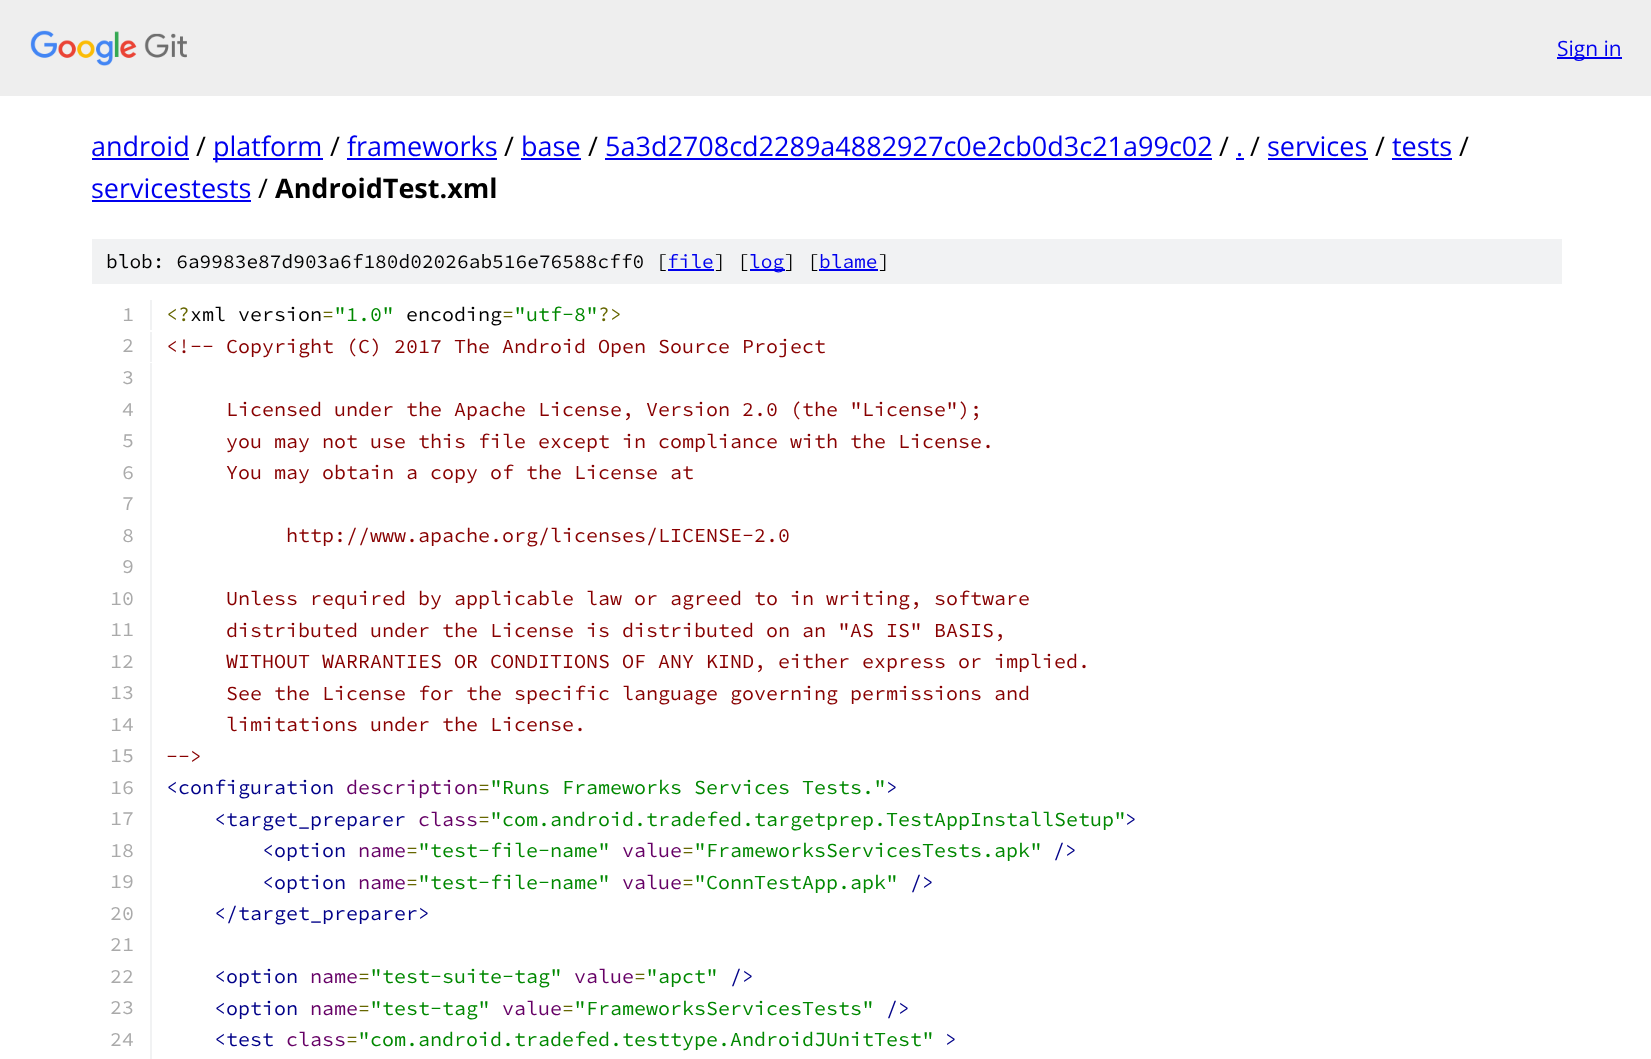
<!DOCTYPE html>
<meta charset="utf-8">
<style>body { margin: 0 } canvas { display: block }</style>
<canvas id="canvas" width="1651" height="1059"></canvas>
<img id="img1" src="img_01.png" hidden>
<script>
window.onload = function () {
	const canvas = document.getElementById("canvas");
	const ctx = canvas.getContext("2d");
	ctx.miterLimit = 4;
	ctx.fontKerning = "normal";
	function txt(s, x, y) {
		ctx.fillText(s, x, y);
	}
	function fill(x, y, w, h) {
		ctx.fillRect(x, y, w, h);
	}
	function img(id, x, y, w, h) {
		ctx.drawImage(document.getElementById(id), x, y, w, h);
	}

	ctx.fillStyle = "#FFFFFF";
	fill(0, 0, 1651, 1059);
	ctx.fillStyle = "#EEEEEE";
	fill(0, 0, 1651, 96);
	img("img1", 30, 30, 157, 36);
	ctx.fillStyle = "#0000EE";
	fill(1557, 57, 65, 2);
	fill(92, 158, 97, 2);
	fill(213, 158, 110, 2);
	fill(347, 158, 150, 2);
	fill(521, 158, 60, 2);
	fill(605, 158, 607, 2);
	fill(1236, 158, 8, 2);
	fill(1268, 158, 100, 2);
	fill(1392, 158, 60, 2);
	fill(92, 200, 159, 2);
	ctx.fillStyle = "#F1F2F3";
	fill(92, 239, 1470, 45);
	ctx.fillStyle = "#0000EE";
	fill(668, 269, 46, 2);
	fill(750, 269, 35, 2);
	fill(819, 269, 59, 2);
	ctx.fillStyle = "#F1F2F3";
	fill(150, 300, 2, 30);
	fill(150, 332, 2, 30);
	fill(150, 363, 2, 696);
	ctx.font = "21px Open Sans";
	ctx.fillStyle = "#0000EE";
	txt("Sign in", 1557, 56);
	ctx.font = "27px Open Sans";
	txt("android", 91, 156);
	ctx.fillStyle = "#000000";
	txt("/", 196, 156);
	ctx.fillStyle = "#0000EE";
	txt("platform", 213, 156);
	ctx.fillStyle = "#000000";
	txt("/", 330, 156);
	ctx.fillStyle = "#0000EE";
	txt("frameworks", 347, 156);
	ctx.fillStyle = "#000000";
	txt("/", 504, 156);
	ctx.fillStyle = "#0000EE";
	txt("base", 521, 156);
	ctx.fillStyle = "#000000";
	txt("/", 588, 156);
	ctx.fillStyle = "#0000EE";
	txt("5a3d2708cd2289a4882927c0e2cb0d3c21a99c02", 605, 156);
	ctx.fillStyle = "#000000";
	txt("/", 1219, 156);
	ctx.fillStyle = "#0000EE";
	txt(".", 1236, 156);
	ctx.fillStyle = "#000000";
	txt("/", 1250, 156);
	ctx.fillStyle = "#0000EE";
	txt("services", 1267, 156);
	ctx.fillStyle = "#000000";
	txt("/", 1375, 156);
	ctx.fillStyle = "#0000EE";
	txt("tests", 1392, 156);
	ctx.fillStyle = "#000000";
	txt("/", 1459, 156);
	ctx.fillStyle = "#0000EE";
	txt("servicestests", 91, 198);
	ctx.fillStyle = "#000000";
	txt("/", 258, 198);
	ctx.font = "bold 27px Open Sans";
	txt("AndroidTest.xml", 275, 198);
	ctx.font = "200 19.5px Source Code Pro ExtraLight";
	txt("blob: 6a9983e87d903a6f180d02026ab516e76588cff0 [", 106, 268);
	ctx.fillStyle = "#0000EE";
	txt("file", 667, 268);
	ctx.fillStyle = "#000000";
	txt("] [", 714, 268);
	ctx.fillStyle = "#0000EE";
	txt("log", 749, 268);
	ctx.fillStyle = "#000000";
	txt("] [", 784, 268);
	ctx.fillStyle = "#0000EE";
	txt("blame", 819, 268);
	ctx.fillStyle = "#000000";
	txt("]", 878, 268);
	ctx.font = "200 20px Source Code Pro ExtraLight";
	ctx.fillStyle = "#AAAAAA";
	txt("1", 122, 321);
	ctx.fillStyle = "#666600";
	txt("<?", 166, 321);
	ctx.fillStyle = "#000000";
	txt("xml version", 190, 321);
	ctx.fillStyle = "#666600";
	txt("=", 322, 321);
	ctx.fillStyle = "#008800";
	txt("\"1.0\"", 334, 321);
	ctx.fillStyle = "#000000";
	txt("encoding", 406, 321);
	ctx.fillStyle = "#666600";
	txt("=", 502, 321);
	ctx.fillStyle = "#008800";
	txt("\"utf-8\"", 514, 321);
	ctx.fillStyle = "#666600";
	txt("?>", 598, 321);
	ctx.fillStyle = "#AAAAAA";
	txt("2", 122, 352);
	ctx.fillStyle = "#880000";
	txt("<\!-- Copyright (C) 2017 The Android Open Source Project", 166, 353);
	ctx.fillStyle = "#AAAAAA";
	txt("3", 122, 384);
	txt("4", 122, 416);
	ctx.fillStyle = "#880000";
	txt("Licensed under the Apache License, Version 2.0 (the \"License\");", 226, 416);
	ctx.fillStyle = "#AAAAAA";
	txt("5", 122, 447);
	ctx.fillStyle = "#880000";
	txt("you may not use this file except in compliance with the License.", 226, 448);
	ctx.fillStyle = "#AAAAAA";
	txt("6", 122, 479);
	ctx.fillStyle = "#880000";
	txt("You may obtain a copy of the License at", 226, 479);
	ctx.fillStyle = "#AAAAAA";
	txt("7", 122, 510);
	txt("8", 122, 542);
	ctx.fillStyle = "#880000";
	txt("http://www.apache.org/licenses/LICENSE-2.0", 286, 542);
	ctx.fillStyle = "#AAAAAA";
	txt("9", 122, 573);
	txt("10", 110, 605);
	ctx.fillStyle = "#880000";
	txt("Unless required by applicable law or agreed to in writing, software", 226, 605);
	ctx.fillStyle = "#AAAAAA";
	txt("11", 110, 636);
	ctx.fillStyle = "#880000";
	txt("distributed under the License is distributed on an \"AS IS\" BASIS,", 226, 637);
	ctx.fillStyle = "#AAAAAA";
	txt("12", 110, 668);
	ctx.fillStyle = "#880000";
	txt("WITHOUT WARRANTIES OR CONDITIONS OF ANY KIND, either express or implied.", 226, 668);
	ctx.fillStyle = "#AAAAAA";
	txt("13", 110, 699);
	ctx.fillStyle = "#880000";
	txt("See the License for the specific language governing permissions and", 226, 700);
	ctx.fillStyle = "#AAAAAA";
	txt("14", 110, 731);
	ctx.fillStyle = "#880000";
	txt("limitations under the License.", 226, 731);
	ctx.fillStyle = "#AAAAAA";
	txt("15", 110, 762);
	ctx.fillStyle = "#880000";
	txt("-->", 166, 763);
	ctx.fillStyle = "#AAAAAA";
	txt("16", 110, 794);
	ctx.fillStyle = "#000088";
	txt("<configuration", 166, 794);
	ctx.fillStyle = "#660066";
	txt("description", 346, 794);
	ctx.fillStyle = "#666600";
	txt("=", 478, 794);
	ctx.fillStyle = "#008800";
	txt("\"Runs Frameworks Services Tests.\"", 490, 794);
	ctx.fillStyle = "#000088";
	txt(">", 886, 794);
	ctx.fillStyle = "#AAAAAA";
	txt("17", 110, 825);
	ctx.fillStyle = "#000088";
	txt("<target_preparer", 214, 826);
	ctx.fillStyle = "#660066";
	txt("class", 418, 826);
	ctx.fillStyle = "#666600";
	txt("=", 478, 826);
	ctx.fillStyle = "#008800";
	txt("\"com.android.tradefed.targetprep.TestAppInstallSetup\"", 490, 826);
	ctx.fillStyle = "#000088";
	txt(">", 1125, 826);
	ctx.fillStyle = "#AAAAAA";
	txt("18", 110, 857);
	ctx.fillStyle = "#000088";
	txt("<option", 262, 857);
	ctx.fillStyle = "#660066";
	txt("name", 358, 857);
	ctx.fillStyle = "#666600";
	txt("=", 406, 857);
	ctx.fillStyle = "#008800";
	txt("\"test-file-name\"", 418, 857);
	ctx.fillStyle = "#660066";
	txt("value", 622, 857);
	ctx.fillStyle = "#666600";
	txt("=", 682, 857);
	ctx.fillStyle = "#008800";
	txt("\"FrameworksServicesTests.apk\"", 694, 857);
	ctx.fillStyle = "#000088";
	txt("/>", 1053, 857);
	ctx.fillStyle = "#AAAAAA";
	txt("19", 110, 888);
	ctx.fillStyle = "#000088";
	txt("<option", 262, 889);
	ctx.fillStyle = "#660066";
	txt("name", 358, 889);
	ctx.fillStyle = "#666600";
	txt("=", 406, 889);
	ctx.fillStyle = "#008800";
	txt("\"test-file-name\"", 418, 889);
	ctx.fillStyle = "#660066";
	txt("value", 622, 889);
	ctx.fillStyle = "#666600";
	txt("=", 682, 889);
	ctx.fillStyle = "#008800";
	txt("\"ConnTestApp.apk\"", 694, 889);
	ctx.fillStyle = "#000088";
	txt("/>", 910, 889);
	ctx.fillStyle = "#AAAAAA";
	txt("20", 110, 920);
	ctx.fillStyle = "#000088";
	txt("<\/target_preparer>", 214, 920);
	ctx.fillStyle = "#AAAAAA";
	txt("21", 110, 951);
	txt("22", 110, 983);
	ctx.fillStyle = "#000088";
	txt("<option", 214, 983);
	ctx.fillStyle = "#660066";
	txt("name", 310, 983);
	ctx.fillStyle = "#666600";
	txt("=", 358, 983);
	ctx.fillStyle = "#008800";
	txt("\"test-suite-tag\"", 370, 983);
	ctx.fillStyle = "#660066";
	txt("value", 574, 983);
	ctx.fillStyle = "#666600";
	txt("=", 634, 983);
	ctx.fillStyle = "#008800";
	txt("\"apct\"", 646, 983);
	ctx.fillStyle = "#000088";
	txt("/>", 730, 983);
	ctx.fillStyle = "#AAAAAA";
	txt("23", 110, 1014);
	ctx.fillStyle = "#000088";
	txt("<option", 214, 1015);
	ctx.fillStyle = "#660066";
	txt("name", 310, 1015);
	ctx.fillStyle = "#666600";
	txt("=", 358, 1015);
	ctx.fillStyle = "#008800";
	txt("\"test-tag\"", 370, 1015);
	ctx.fillStyle = "#660066";
	txt("value", 502, 1015);
	ctx.fillStyle = "#666600";
	txt("=", 562, 1015);
	ctx.fillStyle = "#008800";
	txt("\"FrameworksServicesTests\"", 574, 1015);
	ctx.fillStyle = "#000088";
	txt("/>", 886, 1015);
	ctx.fillStyle = "#AAAAAA";
	txt("24", 110, 1046);
	ctx.fillStyle = "#000088";
	txt("<test", 214, 1046);
	ctx.fillStyle = "#660066";
	txt("class", 286, 1046);
	ctx.fillStyle = "#666600";
	txt("=", 346, 1046);
	ctx.fillStyle = "#008800";
	txt("\"com.android.tradefed.testtype.AndroidJUnitTest\"", 358, 1046);
	ctx.fillStyle = "#000088";
	txt(">", 945, 1046);
};
</script>
